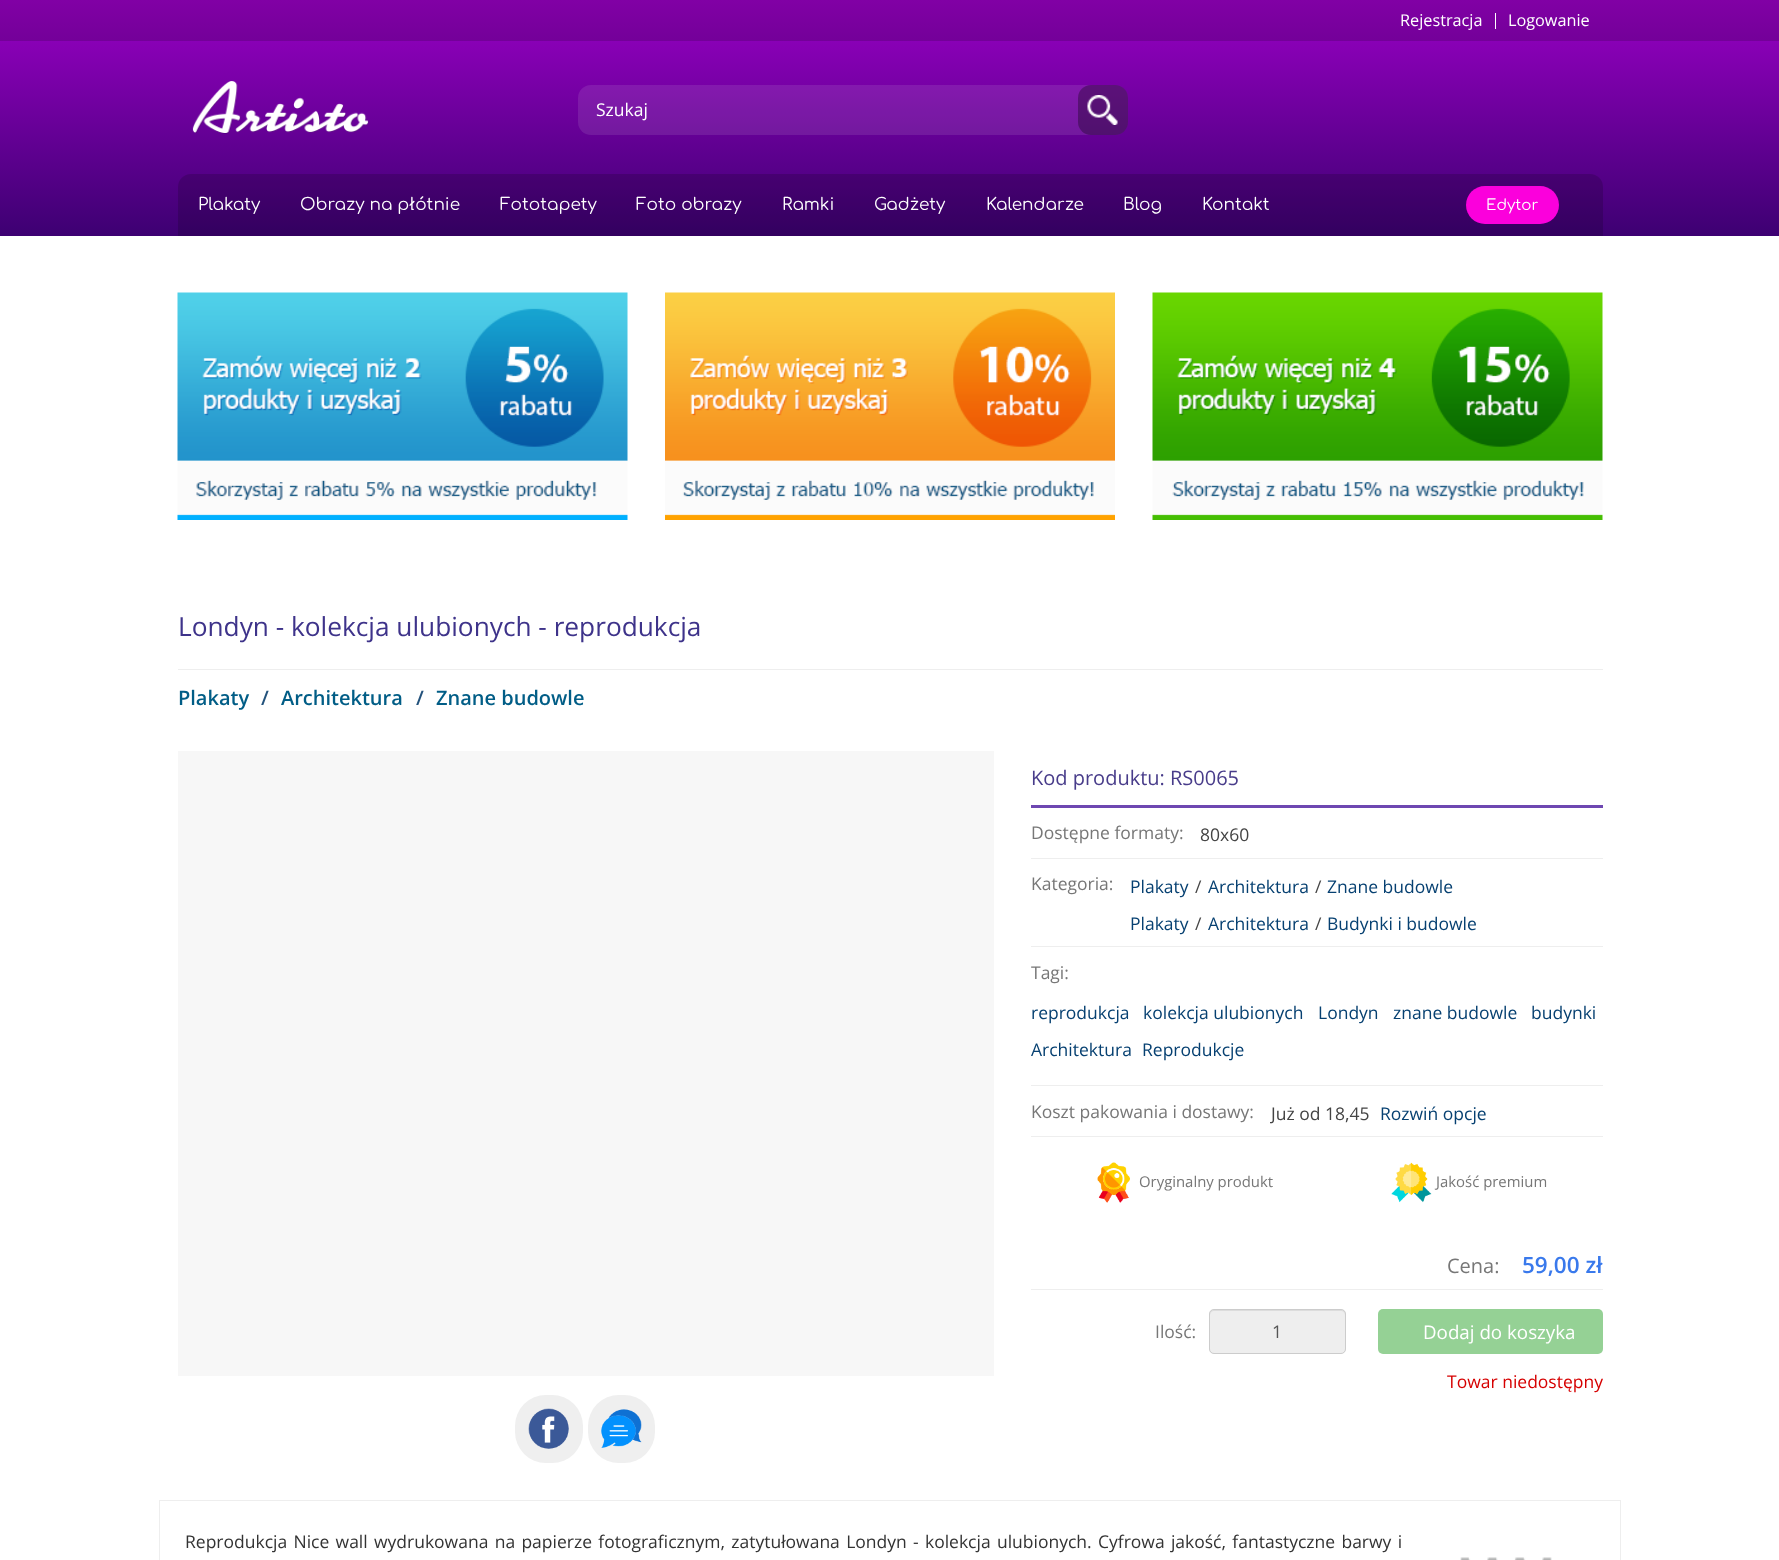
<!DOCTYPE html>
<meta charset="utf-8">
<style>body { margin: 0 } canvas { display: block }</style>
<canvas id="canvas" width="1779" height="1560"></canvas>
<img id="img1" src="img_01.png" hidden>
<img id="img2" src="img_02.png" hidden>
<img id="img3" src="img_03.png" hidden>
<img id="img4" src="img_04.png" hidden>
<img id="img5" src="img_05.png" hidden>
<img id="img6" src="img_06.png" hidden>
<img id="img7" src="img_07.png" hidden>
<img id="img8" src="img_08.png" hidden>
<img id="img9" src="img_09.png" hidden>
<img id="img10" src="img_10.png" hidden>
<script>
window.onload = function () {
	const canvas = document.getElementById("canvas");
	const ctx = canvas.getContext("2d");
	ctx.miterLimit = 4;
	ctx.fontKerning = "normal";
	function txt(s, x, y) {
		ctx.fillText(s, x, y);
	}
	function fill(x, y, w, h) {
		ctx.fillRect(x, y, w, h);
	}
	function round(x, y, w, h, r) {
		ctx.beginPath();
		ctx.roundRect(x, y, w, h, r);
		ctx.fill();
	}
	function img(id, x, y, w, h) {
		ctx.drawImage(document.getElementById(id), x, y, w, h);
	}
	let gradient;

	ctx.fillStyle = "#FFFFFF";
	fill(0, 0, 1779, 1560);
	gradient = ctx.createLinearGradient(890, 0, 890, 236);
	gradient.addColorStop(0, "#9900C4");
	gradient.addColorStop(1, "#3D0072");
	ctx.fillStyle = gradient;
	fill(0, 41, 1779, 195);
	gradient = ctx.createLinearGradient(890, 0, 890, 236);
	gradient.addColorStop(0, "#8100A5");
	gradient.addColorStop(1, "#330060");
	ctx.fillStyle = gradient;
	fill(0, 0, 1779, 41);
	ctx.fillStyle = "#FFFFFF";
	fill(1495, 13, 1, 16);
	img("img1", 192, 81, 177, 53);
	ctx.fillStyle = "rgba(250, 250, 250, 0.1)";
	round(578, 85, 550, 50, 13);
	ctx.fillStyle = "rgba(0, 0, 0, 0.3)";
	round(1078, 85, 50, 50, 13);
	img("img2", 1087, 95, 31, 30);
	ctx.fillStyle = "rgba(0, 0, 0, 0.16)";
	ctx.beginPath();
	ctx.roundRect(178, 174, 1425, 62, [13, 13, 0, 0]);
	ctx.fill();
	ctx.fillStyle = "#FB00DC";
	round(1466, 186, 93, 38, 19);
	img("img3", 177, 292, 451, 228);
	img("img4", 665, 292, 450, 228);
	img("img5", 1152, 292, 451, 228);
	ctx.fillStyle = "#EEEEEE";
	fill(178, 669, 1425, 1);
	ctx.fillStyle = "#F7F7F7";
	fill(178, 751, 816, 625);
	ctx.fillStyle = "#EFEFEF";
	round(515, 1395, 68, 68, 31);
	img("img6", 528, 1408, 41, 41);
	round(588, 1395, 67, 68, 31);
	img("img7", 601, 1409, 41, 39);
	ctx.fillStyle = "#6E47B1";
	fill(1031, 805, 572, 3);
	ctx.fillStyle = "#EEEEEE";
	fill(1031, 858, 572, 1);
	fill(1031, 946, 572, 1);
	fill(1031, 1085, 572, 1);
	fill(1031, 1136, 572, 1);
	img("img8", 1097, 1162, 33, 41);
	img("img9", 1391, 1162, 41, 41);
	fill(1031, 1289, 572, 1);
	round(1209, 1309, 137, 45, 5);
	ctx.fillStyle = "#DCDCDC";
	ctx.beginPath();
	ctx.moveTo(1214, 1311);
	ctx.lineTo(1341, 1311);
	ctx.bezierCurveTo(1343, 1311, 1345, 1313, 1345, 1315);
	ctx.lineTo(1345, 1314);
	ctx.bezierCurveTo(1345, 1312, 1343, 1310, 1341, 1310);
	ctx.lineTo(1214, 1310);
	ctx.bezierCurveTo(1212, 1310, 1210, 1312, 1210, 1314);
	ctx.lineTo(1210, 1315);
	ctx.bezierCurveTo(1210, 1313, 1212, 1311, 1214, 1311);
	ctx.closePath();
	ctx.fill();
	ctx.beginPath();
	ctx.roundRect(1209.5, 1309.5, 136, 44, 4.5);
	ctx.strokeStyle = "#CCCCCC";
	ctx.stroke();
	ctx.fillStyle = "#95D195";
	round(1378, 1309, 225, 45, 5);
	ctx.strokeStyle = "#EEEEEE";
	ctx.strokeRect(159.5, 1500.5, 1461, 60);
	img("img10", 1460, 1557, 92, 3);
	ctx.font = "16.25px Open Sans";
	ctx.fillStyle = "#FFFFFF";
	txt("Rejestracja", 1400, 26);
	txt("Logowanie", 1508, 26);
	ctx.font = "17.5px Open Sans";
	txt("Szukaj", 596, 116);
	ctx.font = "16.9px Comfortaa";
	txt("Plakaty", 198, 210);
	txt("Obrazy na płótnie", 300, 210);
	txt("Fototapety", 500, 210);
	txt("Foto obrazy", 636, 210);
	txt("Ramki", 782, 210);
	txt("Gadżety", 874, 210);
	txt("Kalendarze", 986, 210);
	txt("Blog", 1123, 210);
	txt("Kontakt", 1202, 210);
	ctx.font = "15px Comfortaa";
	txt("Edytor", 1486, 210);
	ctx.font = "26.25px Open Sans";
	ctx.fillStyle = "#3E338A";
	txt("Londyn - kolekcja ulubionych - reprodukcja", 178, 636);
	ctx.font = "600 20px Open Sans";
	ctx.fillStyle = "#015D86";
	txt("Plakaty", 178, 705);
	ctx.fillStyle = "#23527C";
	txt("/", 261, 705);
	ctx.fillStyle = "#015D86";
	txt("Architektura", 281, 705);
	ctx.fillStyle = "#23527C";
	txt("/", 416, 705);
	ctx.fillStyle = "#015D86";
	txt("Znane budowle", 436, 705);
	ctx.font = "20px Open Sans";
	ctx.fillStyle = "#483C8A";
	txt("Kod produktu: RS0065", 1031, 785);
	ctx.font = "17.5px Open Sans";
	ctx.fillStyle = "#777777";
	txt("Dostępne formaty:", 1031, 839);
	ctx.fillStyle = "#444444";
	txt("80x60", 1200, 841);
	ctx.fillStyle = "#777777";
	txt("Kategoria:", 1031, 890);
	ctx.fillStyle = "#064071";
	txt("Plakaty", 1130, 893);
	ctx.fillStyle = "#444444";
	txt("/", 1195, 893);
	ctx.fillStyle = "#064071";
	txt("Architektura", 1208, 893);
	ctx.fillStyle = "#444444";
	txt("/", 1315, 893);
	ctx.fillStyle = "#064071";
	txt("Znane budowle", 1327, 893);
	txt("Plakaty", 1130, 930);
	ctx.fillStyle = "#444444";
	txt("/", 1195, 930);
	ctx.fillStyle = "#064071";
	txt("Architektura", 1208, 930);
	ctx.fillStyle = "#444444";
	txt("/", 1315, 930);
	ctx.fillStyle = "#064071";
	txt("Budynki i budowle", 1327, 930);
	ctx.fillStyle = "#777777";
	txt("Tagi:", 1031, 979);
	ctx.fillStyle = "#064071";
	txt("reprodukcja", 1031, 1019);
	txt("kolekcja ulubionych", 1143, 1019);
	txt("Londyn", 1318, 1019);
	txt("znane budowle", 1393, 1019);
	txt("budynki", 1531, 1019);
	txt("Architektura", 1031, 1056);
	txt("Reprodukcje", 1142, 1056);
	ctx.fillStyle = "#777777";
	txt("Koszt pakowania i dostawy:", 1031, 1118);
	ctx.save();
	ctx.beginPath();
	ctx.rect(1270, 1099, 223, 37);
	ctx.clip();
	ctx.fillStyle = "#444444";
	txt("Już od 18,45", 1271, 1120);
	ctx.restore();
	ctx.fillStyle = "#064071";
	txt("Rozwiń opcje", 1380, 1120);
	ctx.font = "14.9px Open Sans";
	ctx.fillStyle = "#777777";
	txt("Oryginalny produkt", 1139, 1187);
	txt("Jakość premium", 1436, 1187);
	ctx.font = "20px Open Sans";
	txt("Cena:", 1447, 1273);
	ctx.font = "600 22.5px Open Sans";
	ctx.fillStyle = "#3979EC";
	txt("59,00 zł", 1522, 1273);
	ctx.font = "17.5px Open Sans";
	ctx.fillStyle = "#777777";
	txt("Ilość:", 1155, 1338);
	ctx.fillStyle = "#555555";
	txt("1", 1272, 1338);
	ctx.font = "18.75px Open Sans";
	ctx.fillStyle = "#FFFFFF";
	txt("Dodaj do koszyka", 1423, 1339);
	ctx.font = "17.5px Open Sans";
	ctx.fillStyle = "#D60000";
	txt("Towar niedostępny", 1447, 1388);
	ctx.wordSpacing = "1.75px";
	ctx.fillStyle = "#333333";
	txt("Reprodukcja Nice wall wydrukowana na papierze fotograficznym, zatytułowana Londyn - kolekcja ulubionych. Cyfrowa jakość, fantastyczne barwy i", 185, 1548);
};
</script>
